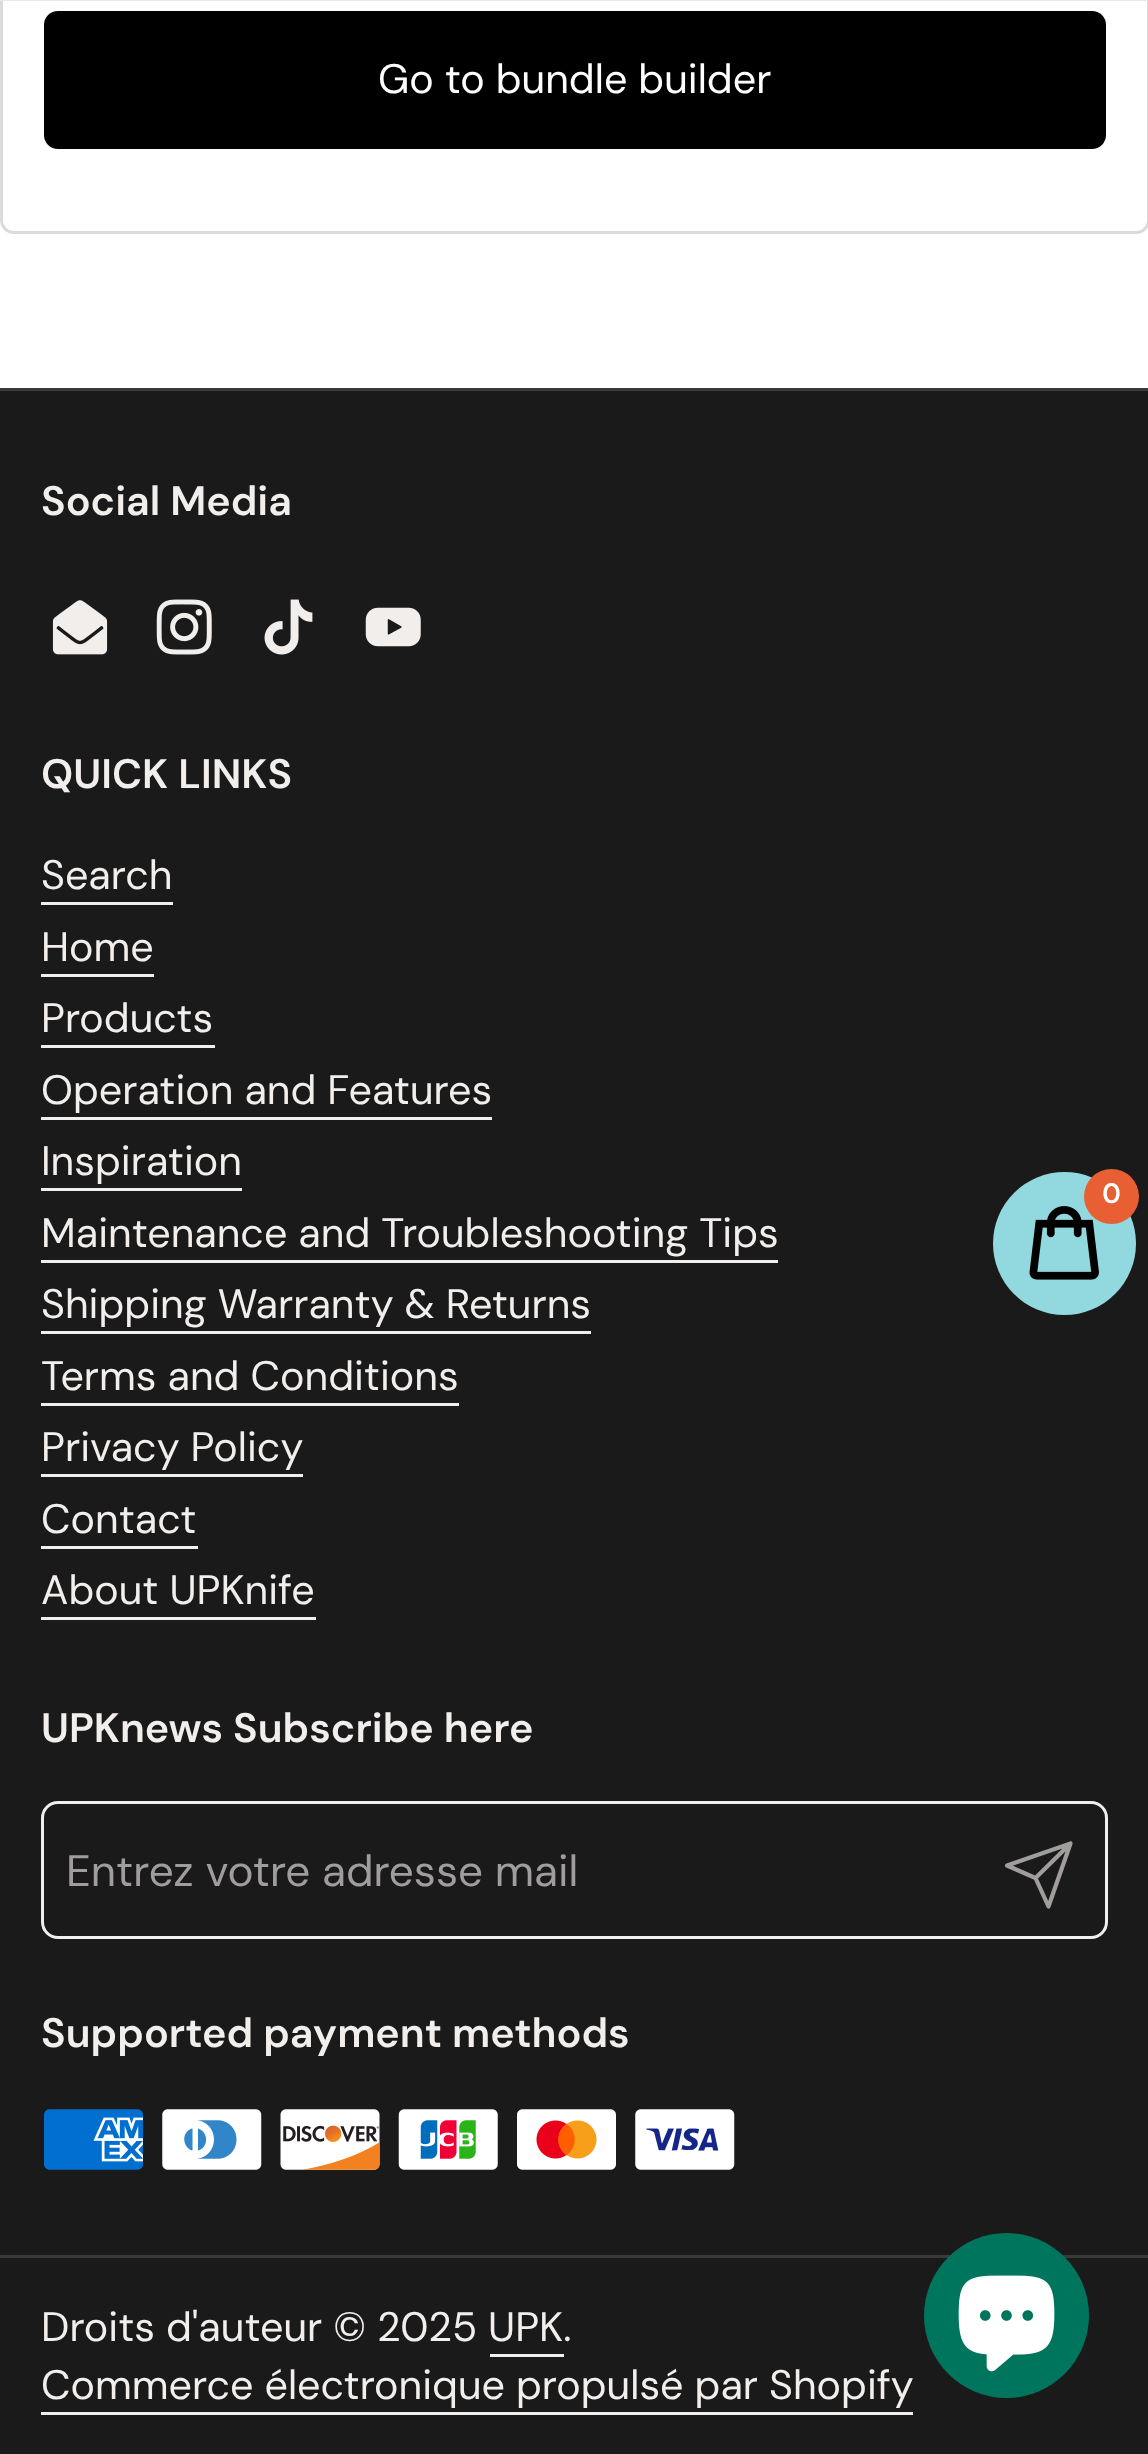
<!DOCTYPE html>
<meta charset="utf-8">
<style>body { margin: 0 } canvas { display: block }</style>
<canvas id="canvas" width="1148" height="2454"></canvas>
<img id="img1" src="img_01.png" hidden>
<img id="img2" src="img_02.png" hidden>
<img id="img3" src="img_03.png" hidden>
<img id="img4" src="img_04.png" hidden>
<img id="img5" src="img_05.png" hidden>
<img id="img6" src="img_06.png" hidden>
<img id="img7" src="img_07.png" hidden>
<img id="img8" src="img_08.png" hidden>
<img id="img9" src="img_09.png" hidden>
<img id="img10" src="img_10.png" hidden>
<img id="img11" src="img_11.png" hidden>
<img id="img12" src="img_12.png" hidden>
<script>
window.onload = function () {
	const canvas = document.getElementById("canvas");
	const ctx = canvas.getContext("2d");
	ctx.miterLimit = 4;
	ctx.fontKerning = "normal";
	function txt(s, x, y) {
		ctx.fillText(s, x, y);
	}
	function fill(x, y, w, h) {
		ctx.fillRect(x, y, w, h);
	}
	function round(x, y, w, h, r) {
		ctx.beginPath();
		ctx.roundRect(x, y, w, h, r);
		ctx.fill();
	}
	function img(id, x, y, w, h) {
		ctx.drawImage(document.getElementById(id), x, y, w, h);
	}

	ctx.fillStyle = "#FFFFFF";
	fill(0, 0, 1148, 2454);
	ctx.beginPath();
	ctx.roundRect(1.5, -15.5, 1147, 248, 12.5);
	ctx.strokeStyle = "#DBDBDB";
	ctx.lineWidth = 3;
	ctx.stroke();
	ctx.fillStyle = "#E8E9EB";
	fill(0, 0, 1148, 1);
	ctx.fillStyle = "#000000";
	round(44, 11, 1062, 138, 14);
	ctx.fillStyle = "#1B1A1A";
	fill(0, 391, 1148, 2063);
	ctx.fillStyle = "#3B3A3A";
	fill(0, 388, 1148, 3);
	img("img1", 52, 600, 56, 55);
	img("img2", 156, 599, 56, 56);
	img("img3", 264, 599, 49, 56);
	img("img4", 365, 607, 56, 40);
	ctx.fillStyle = "#F1EEEC";
	fill(41, 902, 132, 3);
	fill(41, 974, 113, 3);
	fill(41, 1045, 174, 3);
	fill(41, 1117, 451, 3);
	fill(41, 1188, 201, 3);
	fill(41, 1260, 737, 3);
	fill(41, 1331, 550, 3);
	fill(41, 1403, 418, 3);
	fill(41, 1474, 262, 3);
	fill(41, 1546, 157, 3);
	fill(41, 1617, 275, 3);
	ctx.beginPath();
	ctx.roundRect(42.5, 1802.5, 1064, 135, 15.5);
	ctx.strokeStyle = "#F1EEEC";
	ctx.stroke();
	ctx.beginPath();
	ctx.moveTo(1070.5, 1843.5);
	ctx.lineTo(1035.5, 1878);
	ctx.moveTo(1070.5, 1843.5);
	ctx.lineTo(1048.5, 1906.5);
	ctx.lineTo(1035.5, 1878);
	ctx.lineTo(1007, 1865.5);
	ctx.closePath();
	ctx.strokeStyle = "#A09D9C";
	ctx.lineWidth = 4.2;
	ctx.lineCap = "round";
	ctx.lineJoin = "round";
	ctx.stroke();
	img("img5", 44, 2109, 99, 61);
	img("img6", 162, 2109, 100, 61);
	img("img7", 280, 2109, 100, 61);
	img("img8", 398, 2109, 100, 61);
	img("img9", 517, 2109, 99, 61);
	img("img10", 635, 2109, 100, 61);
	ctx.fillStyle = "#3B3A3A";
	fill(0, 2255, 1148, 3);
	ctx.fillStyle = "#F1EEEC";
	fill(490, 2354, 74, 3);
	fill(41, 2412, 872, 3);
	ctx.fillStyle = "#92D8DF";
	ctx.beginPath();
	ctx.arc(1064.5, 1243.5, 71.5, 0, Math.PI * 2);
	ctx.fill();
	img("img11", 1029, 1206, 70, 74);
	ctx.fillStyle = "#E75F33";
	ctx.beginPath();
	ctx.arc(1111.5, 1196.5, 27.5, 0, Math.PI * 2);
	ctx.fill();
	ctx.fillStyle = "#00755D";
	ctx.beginPath();
	ctx.arc(1006.5, 2315.5, 82.5, 0, Math.PI * 2);
	ctx.fill();
	img("img12", 958, 2275, 97, 97);
	ctx.font = "41.25px DM Sans";
	ctx.fillStyle = "#FFFFFF";
	txt("Go to bundle builder", 378, 93);
	ctx.font = "600 41.25px DM Sans";
	ctx.fillStyle = "#F1EEEC";
	txt("Social Media", 41, 515);
	txt("QUICK LINKS", 41, 788);
	ctx.font = "41.25px DM Sans";
	txt("Search", 41, 889);
	txt("Home", 41, 961);
	txt("Products", 41, 1032);
	txt("Operation and Features", 41, 1104);
	txt("Inspiration", 41, 1175);
	txt("Maintenance and Troubleshooting Tips", 41, 1247);
	txt("Shipping Warranty & Returns", 41, 1318);
	txt("Terms and Conditions", 41, 1390);
	txt("Privacy Policy", 41, 1461);
	txt("Contact", 41, 1533);
	txt("About UPKnife", 41, 1604);
	ctx.font = "600 41.25px DM Sans";
	txt("UPKnews Subscribe here", 41, 1742);
	ctx.font = "44px 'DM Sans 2'";
	ctx.fillStyle = "#A09D9C";
	txt("Entrez votre adresse mail", 66, 1886);
	ctx.font = "600 41.25px DM Sans";
	ctx.fillStyle = "#F1EEEC";
	txt("Supported payment methods", 41, 2047);
	ctx.font = "41.25px DM Sans";
	txt("Droits d'auteur © 2025 UPK.", 41, 2341);
	txt("Commerce électronique propulsé par Shopify", 41, 2399);
	ctx.font = "600 28px 'DM Sans 2'";
	ctx.fillStyle = "#FFFFFF";
	txt("0", 1102, 1203);
};
</script>
